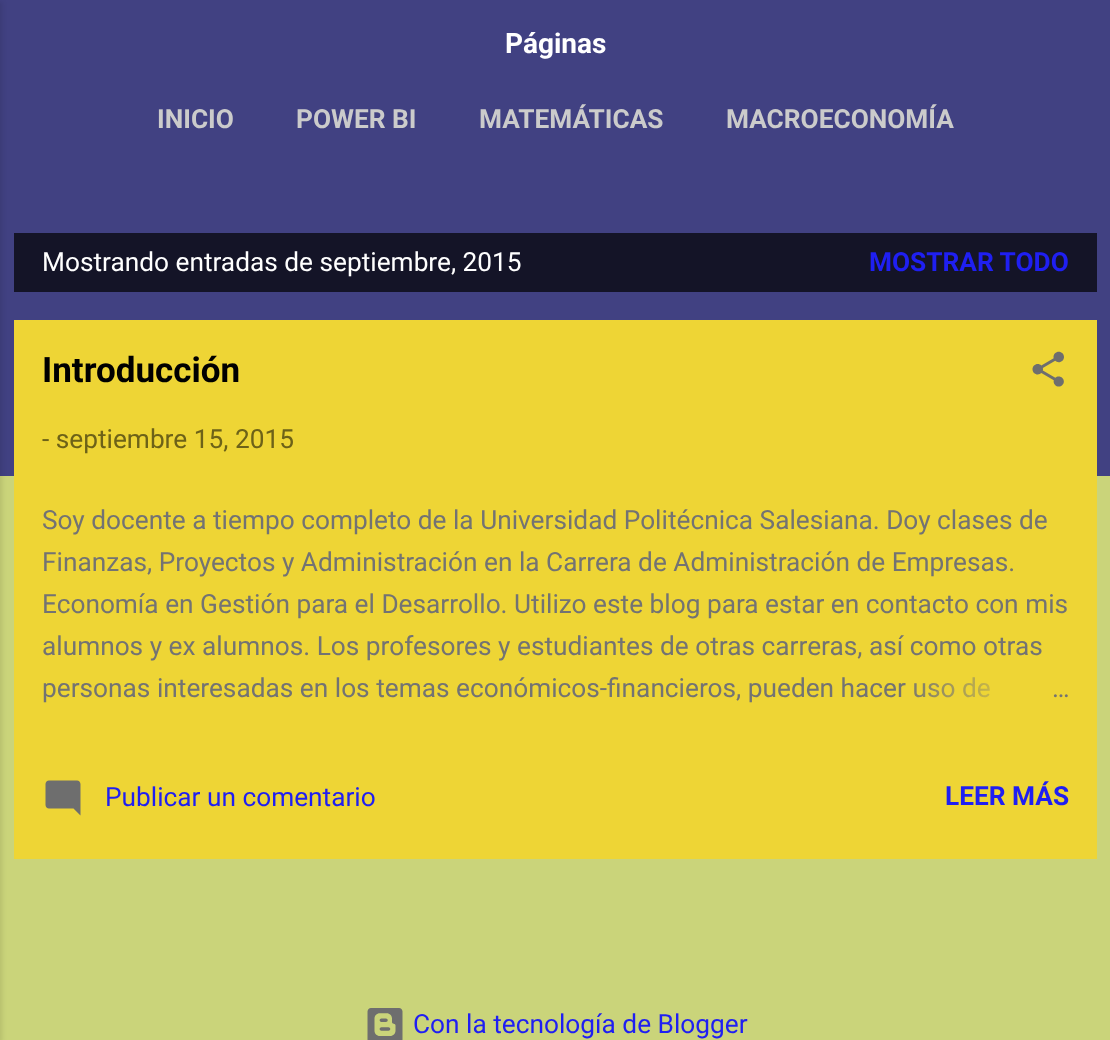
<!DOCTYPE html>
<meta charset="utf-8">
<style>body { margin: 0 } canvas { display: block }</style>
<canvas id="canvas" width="1110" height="1040"></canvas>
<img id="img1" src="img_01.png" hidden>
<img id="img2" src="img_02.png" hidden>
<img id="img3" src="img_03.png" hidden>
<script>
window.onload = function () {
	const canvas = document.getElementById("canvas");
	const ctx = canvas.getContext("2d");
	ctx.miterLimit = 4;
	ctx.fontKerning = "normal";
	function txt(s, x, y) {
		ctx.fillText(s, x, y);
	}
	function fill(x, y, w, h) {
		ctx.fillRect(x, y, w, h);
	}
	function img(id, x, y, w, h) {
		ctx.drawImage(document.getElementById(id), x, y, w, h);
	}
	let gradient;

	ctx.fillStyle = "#CAD47A";
	fill(0, 0, 1110, 1040);
	ctx.fillStyle = "#414182";
	fill(0, 0, 1110, 476);
	ctx.fillStyle = "rgba(0, 0, 0, 0.1)";
	ctx.filter = "blur(2.5px)";
	ctx.beginPath();
	ctx.rect(-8, 2, 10, 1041);
	ctx.fill();
	ctx.filter = "none";
	ctx.fillStyle = "#141427";
	fill(14, 233, 1083, 59);
	ctx.fillStyle = "#EED535";
	fill(14, 320, 1083, 539);
	img("img1", 1032, 351, 32, 36);
	img("img2", 45, 780, 36, 36);
	img("img3", 367, 1008, 36, 32);
	ctx.font = "bold 28px Roboto";
	ctx.fillStyle = "#FFFFFF";
	txt("Páginas", 505, 53);
	ctx.font = "bold 26.25px Roboto";
	ctx.fillStyle = "#CBCBCB";
	txt("INICIO", 157, 128);
	txt("POWER BI", 296, 128);
	txt("MATEMÁTICAS", 479, 128);
	txt("MACROECONOMÍA", 726, 128);
	ctx.font = "26.25px Roboto";
	ctx.fillStyle = "#FFFFFF";
	txt("Mostrando entradas de septiembre, 2015", 42, 271);
	ctx.font = "bold 26.25px Roboto";
	ctx.fillStyle = "#1F1FF2";
	txt("MOSTRAR TODO", 869, 271);
	ctx.font = "bold 35px Roboto";
	ctx.fillStyle = "#000000";
	txt("Introducción", 42, 382);
	ctx.font = "26.25px Roboto";
	ctx.fillStyle = "#6D6218";
	txt("- septiembre 15, 2015", 42, 448);
	ctx.fillStyle = "#737373";
	txt("Soy docente a tiempo completo de la Universidad Politécnica Salesiana. Doy clases de", 42, 529);
	txt("Finanzas, Proyectos y Administración en la Carrera de Administración de Empresas.", 42, 571);
	txt("Economía en Gestión para el Desarrollo. Utilizo este blog para estar en contacto con mis", 42, 613);
	txt("alumnos y ex alumnos. Los profesores y estudiantes de otras carreras, así como otras", 42, 655);
	txt("personas interesadas en los temas económicos-financieros, pueden hacer uso de", 42, 697);
	gradient = ctx.createLinearGradient(1069, 690, 901, 690);
	gradient.addColorStop(0, "#EED535");
	gradient.addColorStop(0.2, "#EED535");
	gradient.addColorStop(1, "rgba(238, 213, 53, 0)");
	ctx.fillStyle = gradient;
	fill(904, 677, 86, 21);
	ctx.fillStyle = "#737373";
	txt("…", 1052, 697);
	ctx.fillStyle = "#1F1FF2";
	txt("Publicar un comentario", 105, 806);
	ctx.font = "bold 26.25px Roboto";
	txt("LEER MÁS", 945, 805);
	ctx.font = "26.25px Roboto";
	txt("Con la tecnología de Blogger", 413, 1033);
};
</script>
